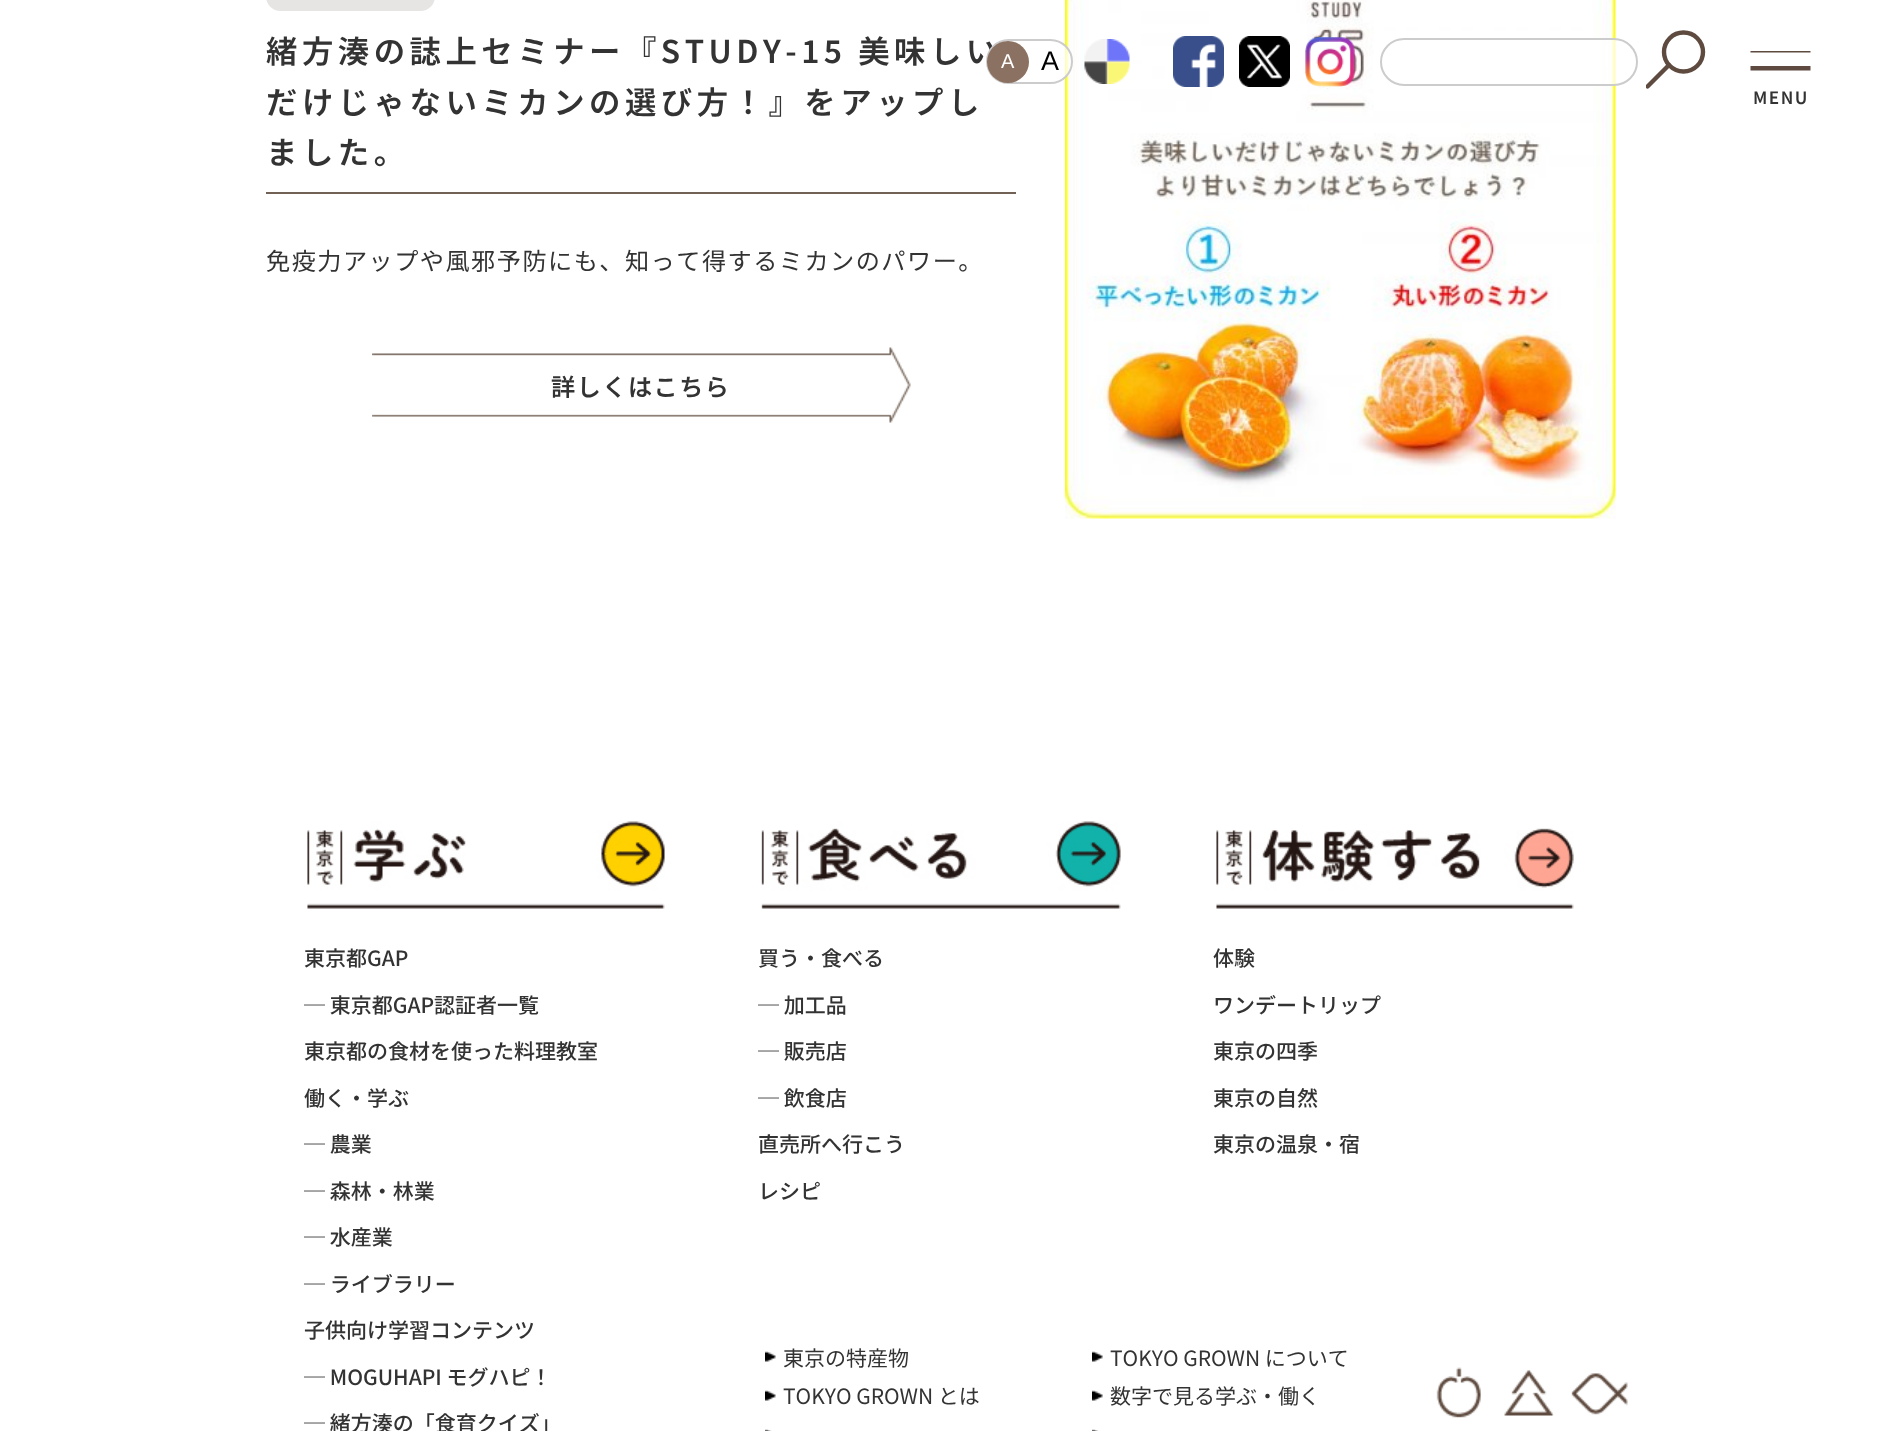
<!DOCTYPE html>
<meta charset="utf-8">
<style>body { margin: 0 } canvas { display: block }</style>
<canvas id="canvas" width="1881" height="1431"></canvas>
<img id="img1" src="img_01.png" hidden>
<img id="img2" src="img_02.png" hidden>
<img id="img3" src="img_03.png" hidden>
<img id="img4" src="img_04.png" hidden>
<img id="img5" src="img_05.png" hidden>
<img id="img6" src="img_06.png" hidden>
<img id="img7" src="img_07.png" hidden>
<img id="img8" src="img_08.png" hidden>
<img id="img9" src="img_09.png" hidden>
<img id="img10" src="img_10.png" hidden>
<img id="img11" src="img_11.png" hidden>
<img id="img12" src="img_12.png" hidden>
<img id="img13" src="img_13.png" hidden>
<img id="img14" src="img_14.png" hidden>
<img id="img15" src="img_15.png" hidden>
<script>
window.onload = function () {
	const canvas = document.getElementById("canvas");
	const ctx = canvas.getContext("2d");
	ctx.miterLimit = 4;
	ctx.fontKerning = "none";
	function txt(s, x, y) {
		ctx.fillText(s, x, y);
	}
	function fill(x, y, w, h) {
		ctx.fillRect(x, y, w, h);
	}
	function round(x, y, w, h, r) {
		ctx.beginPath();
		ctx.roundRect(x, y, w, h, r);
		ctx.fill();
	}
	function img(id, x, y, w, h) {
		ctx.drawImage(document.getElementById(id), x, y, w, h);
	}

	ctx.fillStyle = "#FFFFFF";
	fill(0, 0, 1881, 1431);
	ctx.fillStyle = "#E6E5E3";
	round(266, -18, 169, 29, 18);
	ctx.fillStyle = "#726256";
	fill(266, 192, 750, 2);
	img("img1", 372, 347, 539, 76);
	img("img2", 1065, 0, 551, 519);
	img("img3", 1084, 39, 46, 45);
	img("img4", 1173, 36, 51, 51);
	img("img5", 1239, 36, 51, 51);
	img("img6", 1305, 37, 50, 50);
	ctx.fillStyle = "rgba(255, 255, 255, 0.7)";
	ctx.beginPath();
	ctx.roundRect(1381, 39, 256, 46, 23);
	ctx.fill();
	ctx.strokeStyle = "#CCCCCC";
	ctx.lineWidth = 2;
	ctx.stroke();
	ctx.beginPath();
	ctx.arc(1683.5, 52, 19.5, 0, Math.PI * 2);
	ctx.strokeStyle = "#5E4A3F";
	ctx.lineWidth = 4.4;
	ctx.stroke();
	ctx.save();
	ctx.beginPath();
	ctx.rect(1646, 30, 60, 60);
	ctx.clip();
	ctx.beginPath();
	ctx.moveTo(1669, 65);
	ctx.lineTo(1647.5, 86.5);
	ctx.lineCap = "round";
	ctx.lineJoin = "round";
	ctx.stroke();
	ctx.restore();
	img("img7", 1750, 51, 61, 20);
	img("img8", 307, 821, 358, 88);
	img("img9", 761, 821, 360, 88);
	img("img10", 1216, 828, 358, 81);
	img("img11", 765, 1351, 11, 11);
	img("img12", 1092, 1351, 11, 11);
	img("img11", 765, 1390, 11, 11);
	img("img12", 1092, 1390, 11, 11);
	img("img13", 765, 1429, 7, 2);
	img("img14", 1092, 1429, 7, 2);
	img("img15", 1436, 1367, 192, 51);
	ctx.letterSpacing = "4.5px";
	ctx.font = "600 31.4px Noto Sans JP";
	ctx.fillStyle = "#333333";
	txt("緒方湊の誌上セミナー『STUDY-15 美味しい", 266, 63);
	txt("だけじゃないミカンの選び方！』をアップし", 266, 114);
	txt("ました。", 266, 164);
	ctx.letterSpacing = "1.5px";
	ctx.font = "24.15px Noto Sans JP";
	txt("免疫力アップや風邪予防にも、知って得するミカンのパワー。", 266, 270);
	ctx.font = "600 24.15px Noto Sans JP";
	txt("詳しくはこちら", 551, 396);
	ctx.fillStyle = "rgba(255, 255, 255, 0.7)";
	ctx.beginPath();
	ctx.roundRect(987, 40, 85, 43, 21.5);
	ctx.fill();
	ctx.strokeStyle = "#CCCCCC";
	ctx.lineWidth = 2;
	ctx.stroke();
	ctx.fillStyle = "#8B7161";
	ctx.beginPath();
	ctx.arc(1008, 62, 21, 0, Math.PI * 2);
	ctx.fill();
	ctx.letterSpacing = "0px";
	ctx.font = "20px Liberation Sans";
	ctx.fillStyle = "#FFFFFF";
	txt("A", 1001, 68);
	ctx.font = "27px Liberation Sans";
	ctx.fillStyle = "#000000";
	txt("A", 1041, 70);
	ctx.letterSpacing = "1.5px";
	ctx.font = "600 17px Noto Sans JP";
	ctx.fillStyle = "#333333";
	txt("MENU", 1753, 104);
	ctx.letterSpacing = "0px";
	ctx.font = "500 21px Noto Sans JP";
	txt("東京都GAP", 304, 966);
	txt("─ 東京都GAP認証者一覧", 304, 1013);
	txt("東京都の食材を使った料理教室", 304, 1059);
	txt("働く・学ぶ", 304, 1106);
	txt("─ 農業", 304, 1152);
	txt("─ 森林・林業", 304, 1199);
	txt("─ 水産業", 304, 1245);
	txt("─ ライブラリー", 304, 1292);
	txt("子供向け学習コンテンツ", 304, 1338);
	txt("─ MOGUHAPI モグハピ！", 304, 1385);
	txt("─ 緒方湊の「食育クイズ」", 304, 1431);
	txt("買う・食べる", 758, 966);
	txt("─ 加工品", 758, 1013);
	txt("─ 販売店", 758, 1059);
	txt("─ 飲食店", 758, 1106);
	txt("直売所へ行こう", 758, 1152);
	txt("レシピ", 758, 1199);
	txt("体験", 1213, 966);
	txt("ワンデートリップ", 1213, 1013);
	txt("東京の四季", 1213, 1059);
	txt("東京の自然", 1213, 1106);
	txt("東京の温泉・宿", 1213, 1152);
	ctx.font = "21px Noto Sans JP";
	txt("東京の特産物", 783, 1366);
	txt("TOKYO GROWN について", 1110, 1366);
	txt("TOKYO GROWN とは", 783, 1404);
	txt("数字で見る学ぶ・働く", 1110, 1404);
};
</script>
